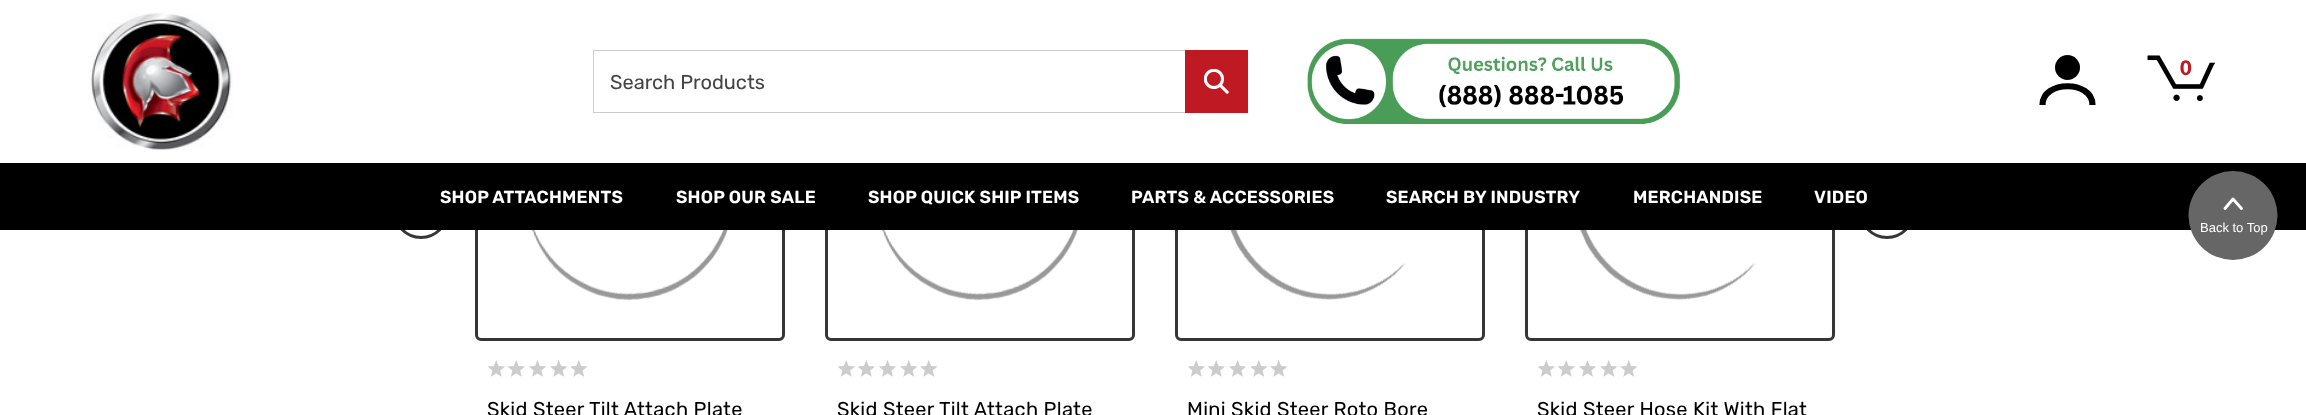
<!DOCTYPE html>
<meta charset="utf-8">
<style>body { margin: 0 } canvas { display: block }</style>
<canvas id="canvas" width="2306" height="415"></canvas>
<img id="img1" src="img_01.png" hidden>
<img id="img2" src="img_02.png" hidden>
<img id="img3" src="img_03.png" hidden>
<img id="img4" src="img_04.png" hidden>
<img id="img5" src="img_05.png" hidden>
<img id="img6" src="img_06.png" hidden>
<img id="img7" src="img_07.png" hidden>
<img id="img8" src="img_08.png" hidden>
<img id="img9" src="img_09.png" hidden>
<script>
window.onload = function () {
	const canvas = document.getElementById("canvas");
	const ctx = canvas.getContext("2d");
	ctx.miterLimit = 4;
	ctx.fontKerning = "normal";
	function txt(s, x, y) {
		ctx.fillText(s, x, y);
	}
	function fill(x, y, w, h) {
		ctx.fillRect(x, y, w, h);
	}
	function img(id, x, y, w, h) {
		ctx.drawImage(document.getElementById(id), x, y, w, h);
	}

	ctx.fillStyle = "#FFFFFF";
	fill(0, 0, 2306, 415);
	ctx.beginPath();
	ctx.roundRect(476.5, 47.5, 307, 292, 4.5);
	ctx.strokeStyle = "#363636";
	ctx.lineWidth = 3;
	ctx.stroke();
	ctx.beginPath();
	ctx.roundRect(826.5, 47.5, 307, 292, 4.5);
	ctx.stroke();
	ctx.beginPath();
	ctx.roundRect(1176.5, 47.5, 307, 292, 4.5);
	ctx.stroke();
	ctx.beginPath();
	ctx.roundRect(1526.5, 47.5, 307, 292, 4.5);
	ctx.stroke();
	fill(475, 46, 1360, 117);
	img("img1", 89, 12, 144, 138);
	ctx.fillStyle = "#000000";
	ctx.beginPath();
	ctx.arc(2067.5, 67.5, 12.5, 0, Math.PI * 2);
	ctx.fill();
	ctx.beginPath();
	ctx.moveTo(2042.5, 105);
	ctx.bezierCurveTo(2042.5, 80, 2092.5, 80, 2092.5, 105);
	ctx.strokeStyle = "#000000";
	ctx.lineWidth = 6.2;
	ctx.stroke();
	img("img2", 2147, 55, 69, 47);
	ctx.strokeStyle = "#CCCCCC";
	ctx.lineWidth = 1;
	ctx.strokeRect(593.5, 50.5, 654, 62);
	ctx.fillStyle = "#BF1924";
	fill(1185, 50, 63, 63);
	img("img3", 1204, 69, 25, 25);
	img("img4", 1307, 38, 373, 86);
	ctx.beginPath();
	ctx.arc(421, 211, 26.5, 0, Math.PI * 2);
	ctx.strokeStyle = "#363636";
	ctx.lineWidth = 3;
	ctx.stroke();
	ctx.beginPath();
	ctx.arc(1887, 211, 26.5, 0, Math.PI * 2);
	ctx.stroke();
	ctx.fillStyle = "#000000";
	fill(0, 163, 2306, 67);
	ctx.fillStyle = "#666666";
	ctx.beginPath();
	ctx.arc(2233, 215.5, 44.5, 0, Math.PI * 2);
	ctx.fill();
	ctx.beginPath();
	ctx.moveTo(2225, 208.5);
	ctx.lineTo(2233, 199);
	ctx.lineTo(2241.5, 208.5);
	ctx.strokeStyle = "#FFFFFF";
	ctx.lineWidth = 2.9;
	ctx.lineCap = "round";
	ctx.lineJoin = "round";
	ctx.stroke();
	img("img5", 532, 230, 196, 71);
	img("img6", 488, 360, 17, 17);
	img("img6", 508, 360, 17, 17);
	img("img7", 529, 360, 17, 17);
	img("img8", 550, 360, 18, 17);
	img("img8", 570, 360, 18, 17);
	img("img5", 882, 230, 196, 71);
	img("img6", 838, 360, 17, 17);
	img("img6", 858, 360, 17, 17);
	img("img7", 879, 360, 17, 17);
	img("img8", 900, 360, 18, 17);
	img("img8", 920, 360, 18, 17);
	img("img9", 1230, 230, 176, 70);
	img("img6", 1188, 360, 17, 17);
	img("img6", 1208, 360, 17, 17);
	img("img7", 1229, 360, 17, 17);
	img("img8", 1250, 360, 18, 17);
	img("img8", 1270, 360, 18, 17);
	img("img9", 1580, 230, 176, 70);
	img("img6", 1538, 360, 17, 17);
	img("img6", 1558, 360, 17, 17);
	img("img7", 1579, 360, 17, 17);
	img("img8", 1600, 360, 18, 17);
	img("img8", 1620, 360, 18, 17);
	ctx.font = "900 20px Lato";
	ctx.fillStyle = "#BF1924";
	txt("0", 2180, 75);
	ctx.font = "20px Rubik";
	ctx.fillStyle = "#444444";
	txt("Search Products", 610, 89);
	ctx.letterSpacing = "0.2px";
	ctx.font = "600 17.5px Rubik";
	ctx.fillStyle = "#FFFFFF";
	txt("SHOP ATTACHMENTS", 440, 203);
	txt("SHOP OUR SALE", 676, 203);
	txt("SHOP QUICK SHIP ITEMS", 868, 203);
	txt("PARTS & ACCESSORIES", 1131, 203);
	txt("SEARCH BY INDUSTRY", 1386, 203);
	txt("MERCHANDISE", 1633, 203);
	txt("VIDEO", 1814, 203);
	ctx.letterSpacing = "0px";
	ctx.font = "13px Liberation Sans";
	txt("Back to Top", 2200, 232);
	ctx.letterSpacing = "0.3px";
	ctx.font = "20px Rubik";
	ctx.fillStyle = "#000000";
	txt("Skid Steer Tilt Attach Plate", 487, 416);
	txt("Skid Steer Tilt Attach Plate", 837, 416);
	txt("Mini Skid Steer Roto Bore", 1187, 416);
	txt("Skid Steer Hose Kit With Flat", 1537, 416);
};
</script>
